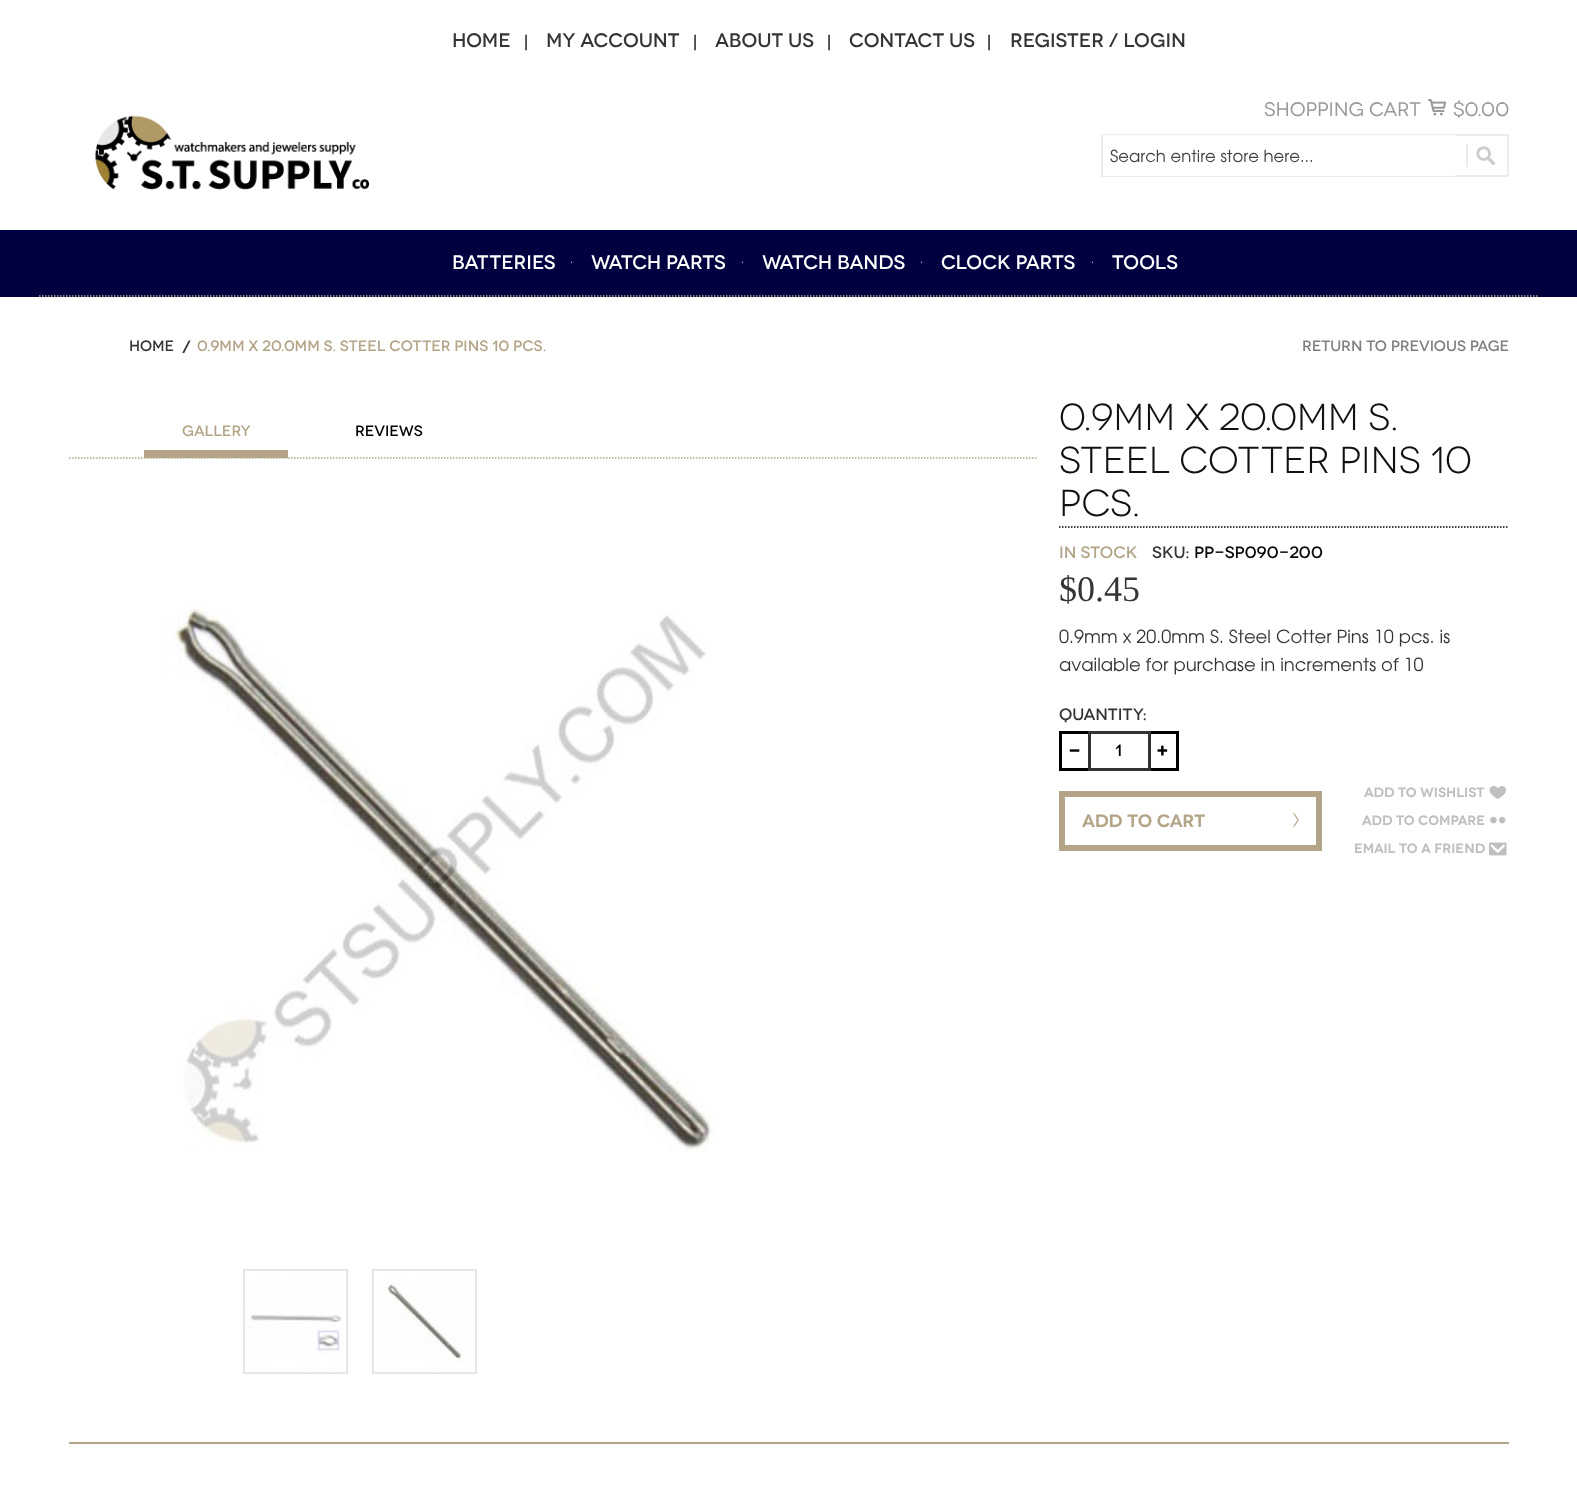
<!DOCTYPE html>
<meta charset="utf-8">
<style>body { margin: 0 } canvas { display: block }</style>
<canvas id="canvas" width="1577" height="1488"></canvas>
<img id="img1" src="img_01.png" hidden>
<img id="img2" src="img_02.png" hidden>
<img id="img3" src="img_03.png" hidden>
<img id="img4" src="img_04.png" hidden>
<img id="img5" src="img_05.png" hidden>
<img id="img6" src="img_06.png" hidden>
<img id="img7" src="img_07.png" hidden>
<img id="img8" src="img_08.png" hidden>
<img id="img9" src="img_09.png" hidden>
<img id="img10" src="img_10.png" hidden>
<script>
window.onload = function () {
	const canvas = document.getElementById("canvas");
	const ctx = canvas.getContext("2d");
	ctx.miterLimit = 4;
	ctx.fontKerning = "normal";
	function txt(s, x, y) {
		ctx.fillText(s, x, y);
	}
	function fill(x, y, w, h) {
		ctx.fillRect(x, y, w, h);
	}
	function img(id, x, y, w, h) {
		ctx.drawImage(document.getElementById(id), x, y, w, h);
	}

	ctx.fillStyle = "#FFFFFF";
	fill(0, 0, 1577, 1488);
	img("img1", 95, 115, 274, 75);
	img("img2", 1428, 99, 19, 17);
	ctx.strokeStyle = "#ECECEC";
	ctx.lineWidth = 2;
	ctx.strokeRect(1102, 135, 406, 41);
	fill(1103, 135, 352, 41);
	ctx.fillStyle = "#ECECEC";
	fill(1466, 144, 2, 23);
	img("img3", 1476, 146, 19, 19);
	ctx.fillStyle = "#000040";
	fill(0, 230, 1577, 67);
	ctx.beginPath();
	ctx.moveTo(39, 296);
	ctx.lineTo(1539, 296);
	ctx.strokeStyle = "#B3A487";
	ctx.lineWidth = 1.5;
	ctx.setLineDash([1.5, 1.5]);
	ctx.stroke();
	ctx.beginPath();
	ctx.moveTo(69, 458);
	ctx.lineTo(1036.5, 458);
	ctx.stroke();
	ctx.fillStyle = "#B3A487";
	fill(144, 450, 144, 8);
	img("img4", 165, 600, 551, 552);
	ctx.strokeStyle = "#E3E3E3";
	ctx.lineWidth = 2;
	ctx.setLineDash([]);
	ctx.strokeRect(244, 1270, 103, 103);
	img("img5", 244, 1270, 103, 103);
	ctx.strokeRect(373, 1270, 103, 103);
	img("img6", 373, 1270, 103, 103);
	ctx.beginPath();
	ctx.moveTo(1059, 527);
	ctx.lineTo(1509, 527);
	ctx.strokeStyle = "#000000";
	ctx.lineWidth = 1.5;
	ctx.setLineDash([1.5, 1.5]);
	ctx.stroke();
	ctx.fillStyle = "#000000";
	fill(1059, 731, 29, 3);
	fill(1059, 768, 29, 3);
	fill(1059, 731, 3, 40);
	ctx.strokeStyle = "#333333";
	ctx.lineWidth = 3;
	ctx.setLineDash([]);
	ctx.strokeRect(1089.5, 732.5, 60, 37);
	fill(1151, 731, 28, 3);
	fill(1176, 731, 3, 40);
	fill(1151, 768, 28, 3);
	ctx.strokeStyle = "#B3A487";
	ctx.lineWidth = 6;
	ctx.strokeRect(1062, 794, 257, 54);
	img("img7", 1293, 813, 6, 14);
	img("img8", 1489, 786, 17, 13);
	img("img9", 1490, 816, 16, 8);
	img("img10", 1489, 842, 18, 14);
	ctx.fillStyle = "#B3A487";
	fill(69, 1442, 1440, 2);
	ctx.font = "600 19.5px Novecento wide";
	ctx.fillStyle = "#353535";
	txt("Home", 452, 47);
	ctx.font = "18px TeX Gyre Adventor";
	ctx.fillStyle = "#000000";
	txt("|", 520, 48);
	ctx.font = "600 19.5px Novecento wide";
	ctx.fillStyle = "#353535";
	txt("My Account", 546, 47);
	ctx.font = "18px TeX Gyre Adventor";
	ctx.fillStyle = "#000000";
	txt("|", 689, 48);
	ctx.font = "600 19.5px Novecento wide";
	ctx.fillStyle = "#353535";
	txt("About Us", 715, 47);
	ctx.font = "18px TeX Gyre Adventor";
	ctx.fillStyle = "#000000";
	txt("|", 823, 48);
	ctx.font = "600 19.5px Novecento wide";
	ctx.fillStyle = "#353535";
	txt("Contact Us", 849, 47);
	ctx.font = "18px TeX Gyre Adventor";
	ctx.fillStyle = "#000000";
	txt("|", 983, 48);
	ctx.font = "600 19.5px Novecento wide";
	ctx.fillStyle = "#353535";
	txt("Register / Login", 1010, 47);
	ctx.font = "19.5px Novecento wide";
	ctx.fillStyle = "#999999";
	txt("Shopping Cart", 1264, 116);
	txt("$0.00", 1453, 116);
	ctx.font = "16.5px TeX Gyre Adventor";
	ctx.fillStyle = "#444444";
	txt("Search entire store here...", 1110, 162);
	ctx.font = "600 19.5px Novecento wide";
	ctx.fillStyle = "#FFFFFF";
	txt("Batteries", 452, 269);
	ctx.font = "10px TeX Gyre Adventor";
	txt(".", 570, 263);
	ctx.font = "600 19.5px Novecento wide";
	txt("Watch Parts", 591, 269);
	ctx.font = "10px TeX Gyre Adventor";
	txt(".", 741, 263);
	ctx.font = "600 19.5px Novecento wide";
	txt("Watch Bands", 762, 269);
	ctx.font = "10px TeX Gyre Adventor";
	txt(".", 920, 263);
	ctx.font = "600 19.5px Novecento wide";
	txt("Clock Parts", 941, 269);
	ctx.font = "10px TeX Gyre Adventor";
	txt(".", 1091, 263);
	ctx.font = "600 19.5px Novecento wide";
	txt("Tools", 1112, 269);
	ctx.font = "600 15px Novecento wide";
	ctx.fillStyle = "#353535";
	txt("Home", 129, 351);
	ctx.font = "600 18px Novecento wide";
	txt("/", 182, 353);
	ctx.font = "600 15px Novecento wide";
	ctx.fillStyle = "#B3A487";
	txt("0.9mm x 20.0mm S. Steel Cotter Pins 10 pcs.", 197, 351);
	ctx.fillStyle = "#7F7F7F";
	txt("Return to Previous Page", 1302, 351);
	ctx.fillStyle = "#B3A487";
	txt("GALLERY", 182, 436);
	ctx.fillStyle = "#000000";
	txt("REVIEWS", 355, 436);
	ctx.font = "300 37.5px Novecento wide";
	ctx.fillStyle = "#111111";
	txt("0.9mm x 20.0mm S.", 1059, 430);
	txt("Steel Cotter Pins 10", 1059, 473);
	txt("pcs.", 1059, 516);
	ctx.font = "600 16.5px Novecento wide";
	ctx.fillStyle = "#B3A487";
	txt("In stock", 1059, 558);
	ctx.fillStyle = "#353535";
	txt("SKU:", 1152, 558);
	ctx.fillStyle = "#090909";
	txt("PP-SP090-200", 1194, 558);
	ctx.font = "36px Liberation Serif";
	ctx.fillStyle = "#353535";
	txt("$0.45", 1059, 601);
	ctx.font = "18px TeX Gyre Adventor";
	txt("0.9mm x 20.0mm S. Steel Cotter Pins 10 pcs. is", 1059, 643);
	txt("available for purchase in increments of 10", 1059, 671);
	ctx.font = "600 16.5px Novecento wide";
	txt("Quantity:", 1059, 720);
	ctx.font = "600 21px 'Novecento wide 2'";
	ctx.fillStyle = "#000000";
	txt("-", 1068, 758);
	ctx.font = "600 16.5px Novecento wide";
	txt("1", 1115, 756);
	ctx.font = "600 21px 'Novecento wide 2'";
	txt("+", 1155, 758);
	ctx.font = "600 18px 'Novecento wide 2'";
	ctx.fillStyle = "#B3A487";
	txt("ADD TO CART", 1082, 827);
	ctx.font = "600 13.5px 'Novecento wide 2'";
	ctx.fillStyle = "#BFBFBF";
	txt("Add to Wishlist", 1364, 797);
	txt("Add to Compare", 1362, 825);
	txt("Email to a Friend", 1354, 853);
};
</script>
